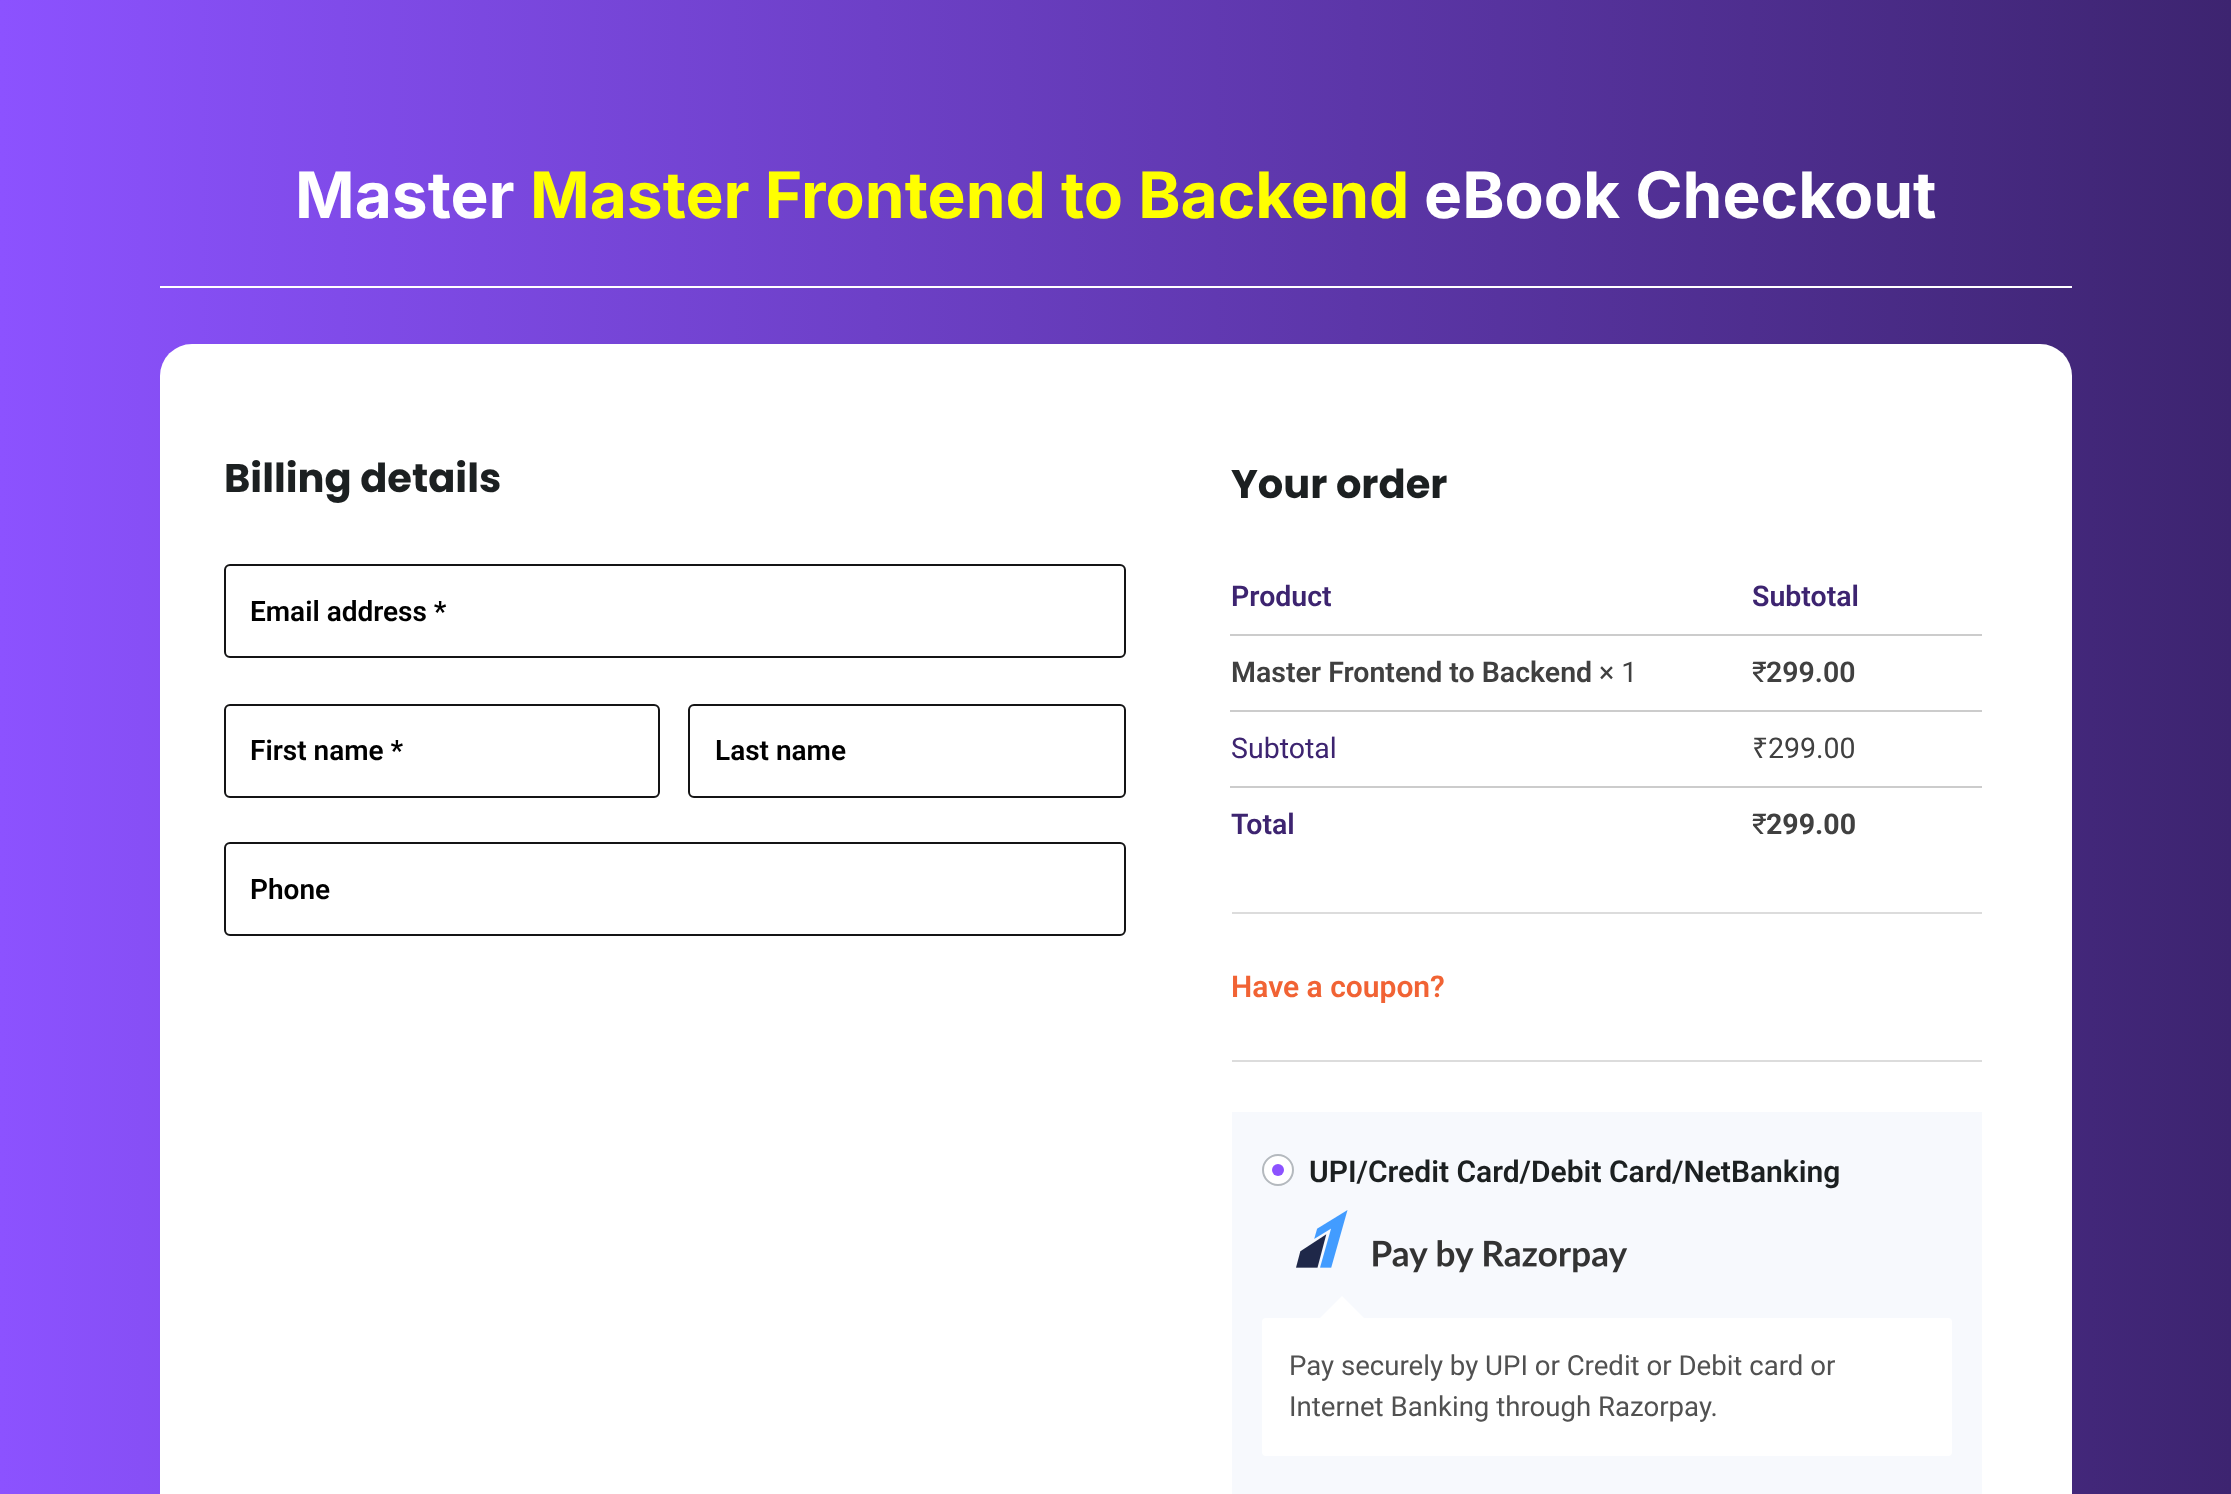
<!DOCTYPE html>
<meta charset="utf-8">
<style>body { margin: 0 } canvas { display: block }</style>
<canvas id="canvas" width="2231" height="1494"></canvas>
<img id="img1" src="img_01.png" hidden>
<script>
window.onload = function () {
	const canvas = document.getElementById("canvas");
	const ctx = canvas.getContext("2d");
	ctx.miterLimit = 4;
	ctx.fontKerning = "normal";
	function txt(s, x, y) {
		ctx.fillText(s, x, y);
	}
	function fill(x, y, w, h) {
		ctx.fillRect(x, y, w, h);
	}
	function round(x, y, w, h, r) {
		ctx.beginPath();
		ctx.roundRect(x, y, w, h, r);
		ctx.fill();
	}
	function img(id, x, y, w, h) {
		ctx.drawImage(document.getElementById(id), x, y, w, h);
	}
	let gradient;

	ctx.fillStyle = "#FFFFFF";
	fill(0, 0, 2231, 1494);
	gradient = ctx.createLinearGradient(0, 1135, 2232, 1135);
	gradient.addColorStop(0, "#8C52FF");
	gradient.addColorStop(1, "#3D2470");
	ctx.fillStyle = gradient;
	fill(0, 0, 2231, 1494);
	ctx.fillStyle = "#FFFFFF";
	fill(160, 286, 1912, 2);
	round(160, 344, 1912, 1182, 32);
	ctx.beginPath();
	ctx.roundRect(225, 565, 900, 92, 5);
	ctx.strokeStyle = "#141415";
	ctx.lineWidth = 2;
	ctx.stroke();
	ctx.beginPath();
	ctx.roundRect(225, 705, 434, 92, 5);
	ctx.stroke();
	ctx.beginPath();
	ctx.roundRect(689, 705, 436, 92, 5);
	ctx.stroke();
	ctx.beginPath();
	ctx.roundRect(225, 843, 900, 92, 5);
	ctx.stroke();
	ctx.fillStyle = "#CCCCCC";
	fill(1230, 634, 752, 2);
	fill(1230, 710, 752, 2);
	fill(1230, 786, 752, 2);
	ctx.fillStyle = "#DCDCDC";
	fill(1232, 912, 750, 2);
	fill(1232, 1060, 750, 2);
	ctx.fillStyle = "#F7F9FD";
	fill(1232, 1112, 750, 382);
	ctx.fillStyle = "#FFFFFF";
	ctx.beginPath();
	ctx.arc(1278, 1170, 15, 0, Math.PI * 2);
	ctx.fill();
	ctx.strokeStyle = "#B4B9BE";
	ctx.stroke();
	ctx.fillStyle = "#8C52FF";
	ctx.beginPath();
	ctx.arc(1278, 1170, 6, 0, Math.PI * 2);
	ctx.fill();
	img("img1", 1296, 1210, 332, 63);
	ctx.fillStyle = "#FFFFFF";
	round(1262, 1318, 690, 138, 4);
	ctx.beginPath();
	ctx.moveTo(1368, 1322);
	ctx.lineTo(1316, 1322);
	ctx.lineTo(1342, 1296);
	ctx.closePath();
	ctx.fill();
	ctx.font = "bold 64px Inter";
	txt("Master", 295, 218);
	ctx.fillStyle = "#FFFF00";
	txt("Master Frontend to Backend", 530, 218);
	ctx.fillStyle = "#FFFFFF";
	txt("eBook Checkout", 1424, 218);
	ctx.font = "bold 40px Poppins";
	ctx.fillStyle = "#1C2021";
	txt("Billing details", 224, 492);
	ctx.font = "600 28px Roboto";
	ctx.fillStyle = "#000000";
	txt("Email address *", 250, 621);
	txt("First name *", 250, 760);
	txt("Last name", 715, 760);
	txt("Phone", 250, 899);
	ctx.font = "bold 40px Poppins";
	ctx.fillStyle = "#1C2021";
	txt("Your order", 1231, 498);
	ctx.font = "600 28.5px Roboto";
	ctx.fillStyle = "#3D2470";
	txt("Product", 1231, 606);
	txt("Subtotal", 1752, 606);
	ctx.fillStyle = "#404040";
	txt("Master Frontend to Backend", 1231, 682);
	ctx.font = "28.5px Roboto";
	txt("× 1", 1599, 682);
	ctx.font = "28.5px 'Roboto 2'";
	txt("₹", 1752, 682);
	ctx.font = "600 28.5px Roboto";
	txt("299.00", 1766, 682);
	ctx.font = "28.5px Roboto";
	ctx.fillStyle = "#3D2470";
	txt("Subtotal", 1231, 758);
	ctx.font = "28.5px Noto Sans";
	ctx.fillStyle = "#404040";
	txt("₹", 1752, 758);
	ctx.font = "28.5px Roboto";
	txt("299.00", 1768, 758);
	ctx.font = "600 28.5px Roboto";
	ctx.fillStyle = "#3D2470";
	txt("Total", 1231, 834);
	ctx.font = "28.5px 'Roboto 2'";
	ctx.fillStyle = "#404040";
	txt("₹", 1752, 834);
	ctx.font = "bold 28.5px Roboto";
	txt("299.00", 1766, 834);
	ctx.font = "600 30px Roboto";
	ctx.fillStyle = "#F16334";
	txt("Have a coupon?", 1231, 997);
	ctx.fillStyle = "#1C2021";
	txt("UPI/Credit Card/Debit Card/NetBanking", 1309, 1182);
	ctx.font = "27.6px Roboto";
	ctx.fillStyle = "#515151";
	txt("Pay securely by UPI or Credit or Debit card or", 1289, 1375);
	txt("Internet Banking through Razorpay.", 1289, 1416);
};
</script>
